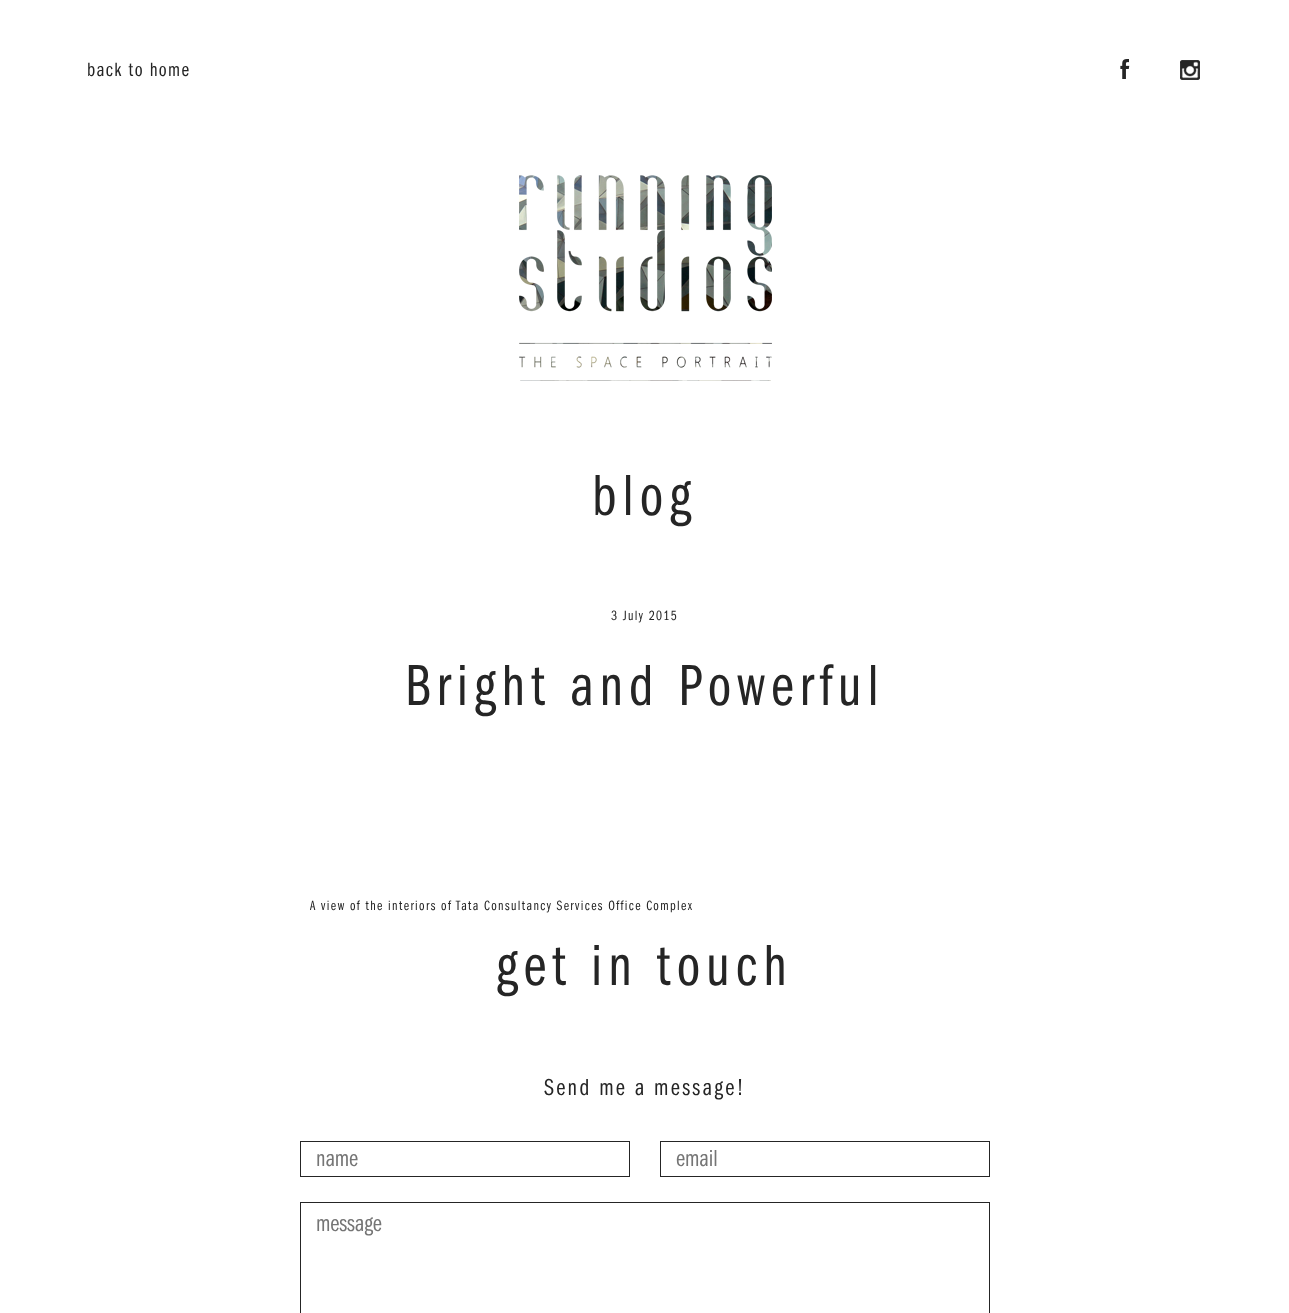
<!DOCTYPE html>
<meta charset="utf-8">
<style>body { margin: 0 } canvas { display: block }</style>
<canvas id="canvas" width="1289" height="1313"></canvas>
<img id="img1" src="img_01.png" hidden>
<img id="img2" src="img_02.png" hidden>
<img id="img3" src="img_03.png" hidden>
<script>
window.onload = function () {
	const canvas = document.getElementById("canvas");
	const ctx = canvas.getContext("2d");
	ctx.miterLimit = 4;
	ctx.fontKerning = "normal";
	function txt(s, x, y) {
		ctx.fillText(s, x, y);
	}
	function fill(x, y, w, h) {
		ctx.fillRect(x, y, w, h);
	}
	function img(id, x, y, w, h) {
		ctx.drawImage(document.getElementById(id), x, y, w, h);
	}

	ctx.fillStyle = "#FFFFFF";
	fill(0, 0, 1289, 1313);
	img("img1", 1120, 59, 10, 20);
	img("img2", 1180, 60, 20, 20);
	img("img3", 519, 175, 253, 206);
	ctx.strokeStyle = "#252525";
	ctx.strokeRect(300.5, 1141.5, 329, 35);
	ctx.strokeRect(660.5, 1141.5, 329, 35);
	ctx.strokeRect(300.5, 1202.5, 689, 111);
	ctx.letterSpacing = "1.4px";
	ctx.font = "20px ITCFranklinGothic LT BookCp";
	ctx.fillStyle = "#252525";
	txt("back to home", 87, 76);
	ctx.letterSpacing = "6px";
	ctx.font = "60px ITCFranklinGothic LT BookCp";
	txt("blog", 592, 515);
	ctx.letterSpacing = "1.4px";
	ctx.font = "14px ITCFranklinGothic LT BookCp";
	txt("3 July 2015", 611, 620);
	ctx.letterSpacing = "6px";
	ctx.font = "60px ITCFranklinGothic LT BookCp";
	txt("Bright and Powerful", 405, 705);
	ctx.letterSpacing = "1.4px";
	ctx.font = "14px ITCFranklinGothic LT BookCp";
	txt("A view of the interiors of Tata Consultancy Services Office Complex", 310, 910);
	ctx.letterSpacing = "6px";
	ctx.font = "60px ITCFranklinGothic LT BookCp";
	txt("get in touch", 496, 985);
	ctx.letterSpacing = "2.4px";
	ctx.font = "24px ITCFranklinGothic LT BookCp";
	txt("Send me a message!", 544, 1095);
	ctx.letterSpacing = "0px";
	ctx.fillStyle = "#757575";
	txt("name", 316, 1166);
	txt("email", 676, 1166);
	txt("message", 316, 1231);
};
</script>
